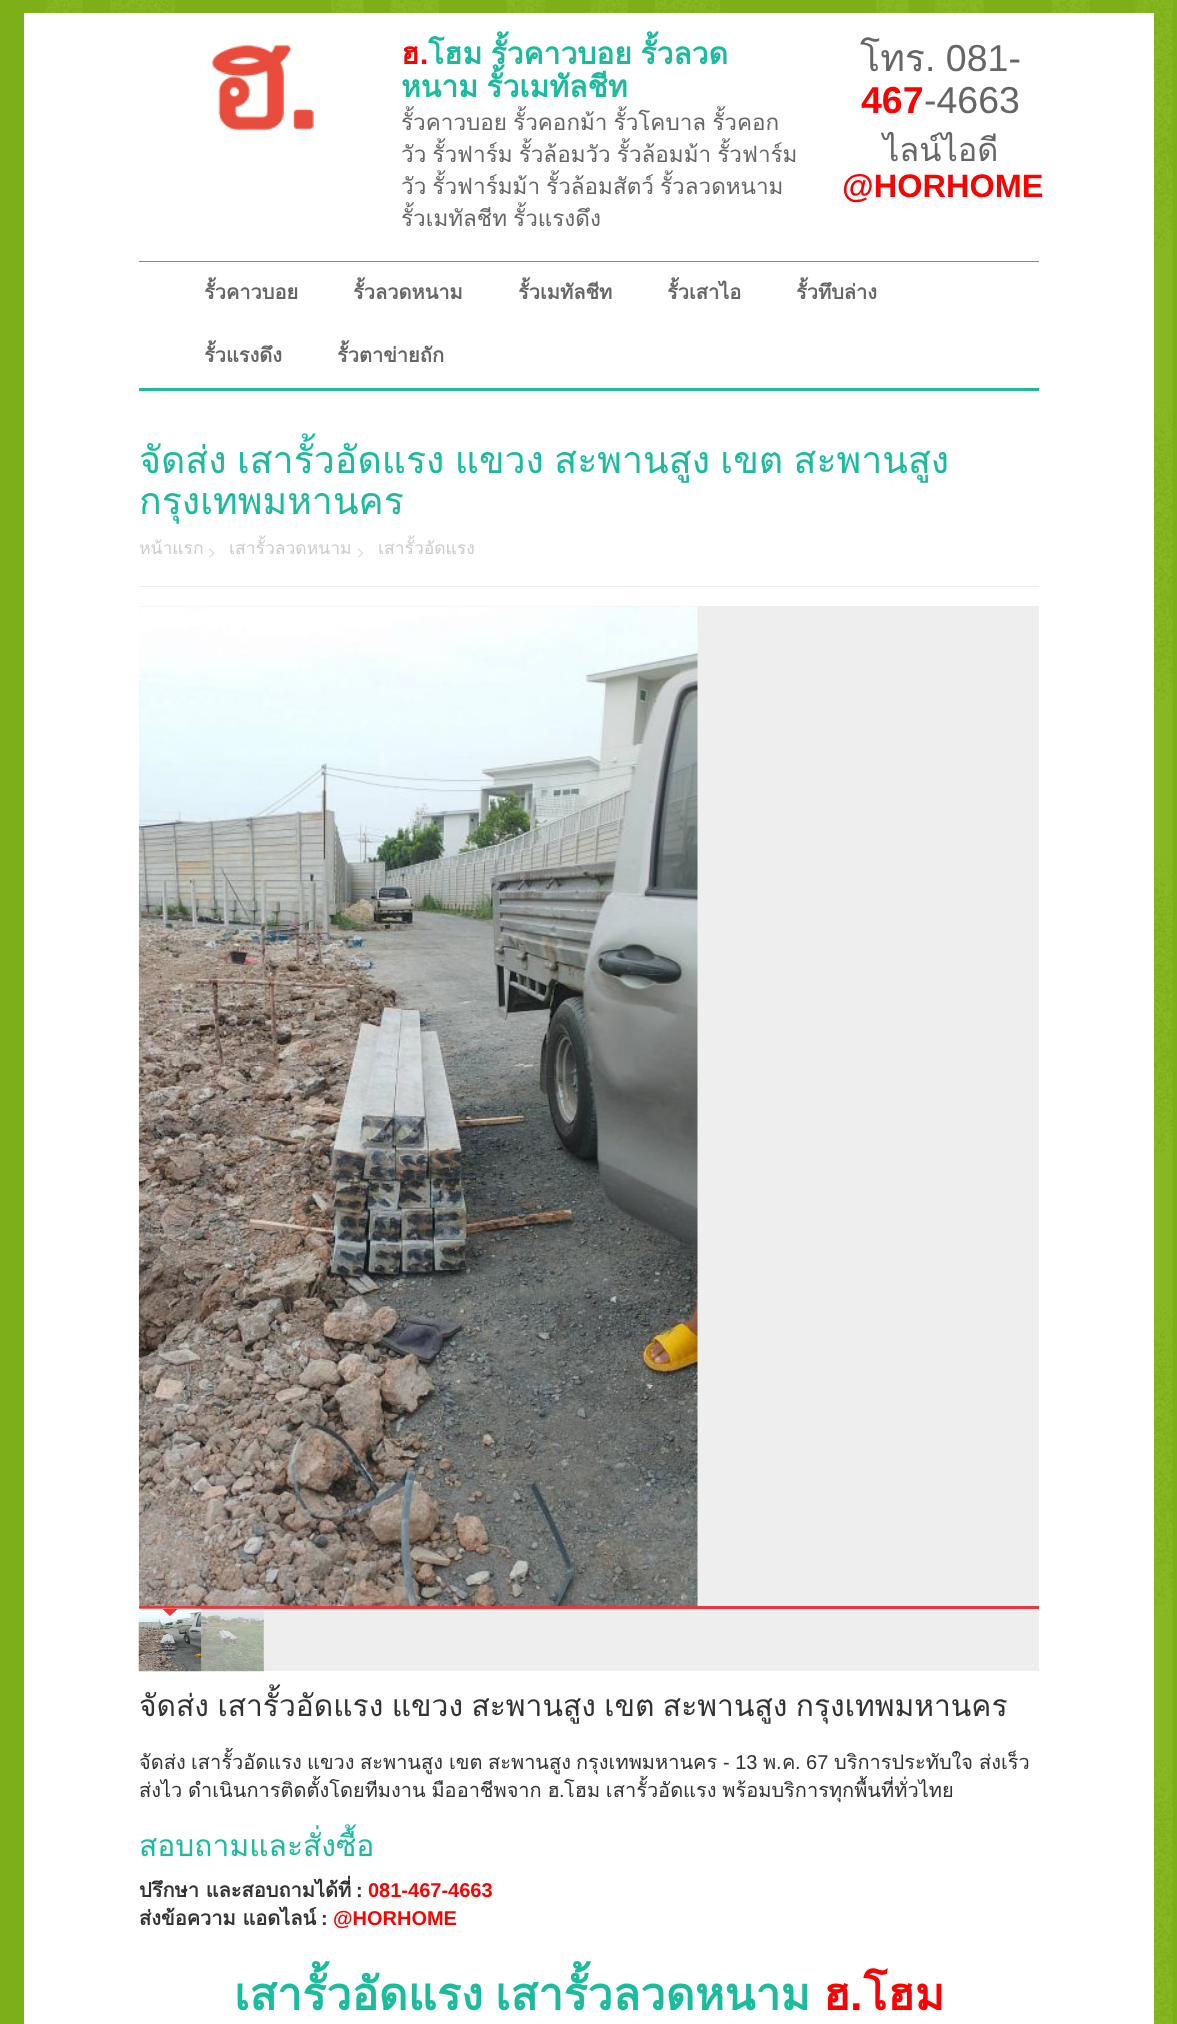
<!DOCTYPE html>
<meta charset="utf-8">
<style>body { margin: 0 } canvas { display: block }</style>
<canvas id="canvas" width="1177" height="2024"></canvas>
<img id="img1" src="img_01.png" hidden>
<img id="img2" src="img_02.png" hidden>
<img id="img3" src="img_03.png" hidden>
<img id="img4" src="img_04.png" hidden>
<img id="img5" src="img_05.png" hidden>
<img id="img6" src="img_06.png" hidden>
<img id="img7" src="img_07.png" hidden>
<script>
window.onload = function () {
	const canvas = document.getElementById("canvas");
	const ctx = canvas.getContext("2d");
	ctx.miterLimit = 4;
	ctx.fontKerning = "normal";
	function txt(s, x, y) {
		ctx.fillText(s, x, y);
	}
	function fill(x, y, w, h) {
		ctx.fillRect(x, y, w, h);
	}
	function img(id, x, y, w, h) {
		ctx.drawImage(document.getElementById(id), x, y, w, h);
	}

	ctx.fillStyle = "#FFFFFF";
	fill(0, 0, 1177, 2024);
	img("img1", 0, 0, 1177, 2024);
	fill(24, 13, 1130, 2011);
	img("img2", 212, 44, 102, 87);
	ctx.fillStyle = "#1ABC9C";
	fill(139, 261, 900, 1);
	fill(139, 388, 900, 3);
	ctx.fillStyle = "#EDEDED";
	fill(139, 586, 900, 1);
	img("img3", 209, 548, 6, 10);
	img("img4", 357, 548, 6, 10);
	ctx.fillStyle = "#EEEEEE";
	fill(139, 606, 900, 1065);
	ctx.fillStyle = "#F0353A";
	fill(139, 1606, 900, 3);
	img("img5", 138, 606, 560, 1001);
	img("img6", 138, 1608, 64, 64);
	ctx.beginPath();
	ctx.moveTo(162.5, 1609);
	ctx.lineTo(177.5, 1609);
	ctx.lineTo(170, 1616);
	ctx.closePath();
	ctx.fill();
	img("img7", 201, 1608, 63, 64);
	ctx.font = "bold 30px Loma";
	ctx.fillStyle = "#FF0000";
	txt("ฮ", 401, 64);
	ctx.font = "bold 30px Liberation Sans";
	txt(".", 420, 64);
	ctx.wordSpacing = "-1.75px";
	ctx.font = "bold 30px Loma";
	ctx.fillStyle = "#1ABC9C";
	txt("โฮม รั้วคาวบอย รั้วลวด", 428, 64);
	txt("หนาม รั้วเมทัลชีท", 401, 97);
	ctx.wordSpacing = "-1.5px";
	ctx.font = "22.5px Loma";
	ctx.fillStyle = "#666666";
	txt("รั้วคาวบอย รั้วคอกม้า รั้วโคบาล รั้วคอก", 401, 130);
	txt("วัว รั้วฟาร์ม รั้วล้อมวัว รั้วล้อมม้า รั้วฟาร์ม", 401, 162);
	txt("วัว รั้วฟาร์มม้า รั้วล้อมสัตว์ รั้วลวดหนาม", 401, 194);
	txt("รั้วเมทัลชีท รั้วแรงดึง", 401, 226);
	ctx.wordSpacing = "0px";
	ctx.font = "37.5px Loma";
	txt("โทร", 860, 71);
	ctx.font = "37.5px Liberation Sans";
	txt(". 081-", 925, 71);
	ctx.font = "bold 37.5px Liberation Sans";
	ctx.fillStyle = "#FF0000";
	txt("467", 861, 113);
	ctx.font = "37.5px Liberation Sans";
	ctx.fillStyle = "#666666";
	txt("-4663", 924, 113);
	ctx.font = "32.5px Loma";
	txt("ไลน์ไอดี", 883, 161);
	ctx.font = "bold 32.5px Liberation Sans";
	ctx.fillStyle = "#FF0000";
	txt("@HORHOME", 842, 197);
	ctx.font = "bold 20px Loma";
	ctx.fillStyle = "#666666";
	txt("รั้วคาวบอย", 204, 299);
	txt("รั้วลวดหนาม", 353, 299);
	txt("รั้วเมทัลชีท", 518, 299);
	txt("รั้วเสาไอ", 667, 299);
	txt("รั้วทึบล่าง", 796, 299);
	txt("รั้วแรงดึง", 204, 362);
	txt("รั้วตาข่ายถัก", 337, 362);
	ctx.wordSpacing = "-2.25px";
	ctx.font = "37.5px Loma";
	ctx.fillStyle = "#1ABC9C";
	txt("จัดส่ง เสารั้วอัดแรง แขวง สะพานสูง เขต สะพานสูง", 139, 473);
	ctx.wordSpacing = "0px";
	txt("กรุงเทพมหานคร", 139, 514);
	ctx.font = "17.5px Loma";
	ctx.fillStyle = "#CCCCCC";
	txt("หน้าแรก", 139, 554);
	txt("เสารั้วลวดหนาม", 229, 554);
	txt("เสารั้วอัดแรง", 378, 554);
	ctx.wordSpacing = "-1.75px";
	ctx.font = "30px Loma";
	ctx.fillStyle = "#333333";
	txt("จัดส่ง เสารั้วอัดแรง แขวง สะพานสูง เขต สะพานสูง กรุงเทพมหานคร", 139, 1716);
	ctx.wordSpacing = "0px";
	ctx.font = "20px Loma";
	txt("จัดส่ง", 139, 1769);
	txt("เสารั้วอัดแรง", 191, 1769);
	txt("แขวง", 307, 1769);
	txt("สะพานสูง", 360, 1769);
	txt("เขต", 449, 1769);
	txt("สะพานสูง", 488, 1769);
	txt("กรุงเทพมหานคร", 576, 1769);
	ctx.font = "20px Liberation Sans";
	txt("- 13", 723, 1769);
	ctx.font = "20px Loma";
	txt("พ", 763, 1769);
	ctx.font = "20px Liberation Sans";
	txt(".", 776, 1769);
	ctx.font = "20px Loma";
	txt("ค", 782, 1769);
	ctx.font = "20px Liberation Sans";
	txt(". 67", 795, 1769);
	ctx.font = "20px Loma";
	txt("บริการประทับใจ", 834, 1769);
	txt("ส่งเร็ว", 979, 1769);
	ctx.wordSpacing = "-1px";
	txt("ส่งไว ดำเนินการติดตั้งโดยทีมงาน มืออาชีพจาก ฮ", 139, 1797);
	ctx.wordSpacing = "0px";
	ctx.font = "20px Liberation Sans";
	txt(".", 559, 1797);
	ctx.wordSpacing = "-1px";
	ctx.font = "20px Loma";
	txt("โฮม เสารั้วอัดแรง พร้อมบริการทุกพื้นที่ทั่วไทย", 564, 1797);
	ctx.wordSpacing = "0px";
	ctx.font = "30px Loma";
	ctx.fillStyle = "#1ABC9C";
	txt("สอบถามและสั่งซื้อ", 139, 1856);
	ctx.font = "bold 20px Loma";
	ctx.fillStyle = "#333333";
	txt("ปรึกษา และสอบถามได้ที่", 139, 1897);
	ctx.font = "bold 20px Liberation Sans";
	txt(":", 356, 1897);
	ctx.fillStyle = "#FF0000";
	txt("081-467-4663", 368, 1897);
	ctx.font = "bold 20px Loma";
	ctx.fillStyle = "#333333";
	txt("ส่งข้อความ แอดไลน์", 139, 1925);
	ctx.font = "bold 20px Liberation Sans";
	txt(":", 321, 1925);
	ctx.fillStyle = "#FF0000";
	txt("@HORHOME", 333, 1925);
	ctx.wordSpacing = "-3px";
	ctx.font = "bold 45px Loma";
	ctx.fillStyle = "#1ABC9C";
	txt("เสารั้วอัดแรง เสารั้วลวดหนาม", 234, 2010);
	ctx.wordSpacing = "0px";
	ctx.fillStyle = "#FF0000";
	txt("ฮ", 823, 2010);
	ctx.font = "bold 45px Liberation Sans";
	txt(".", 850, 2010);
	ctx.font = "bold 45px Loma";
	txt("โฮม", 863, 2010);
};
</script>
